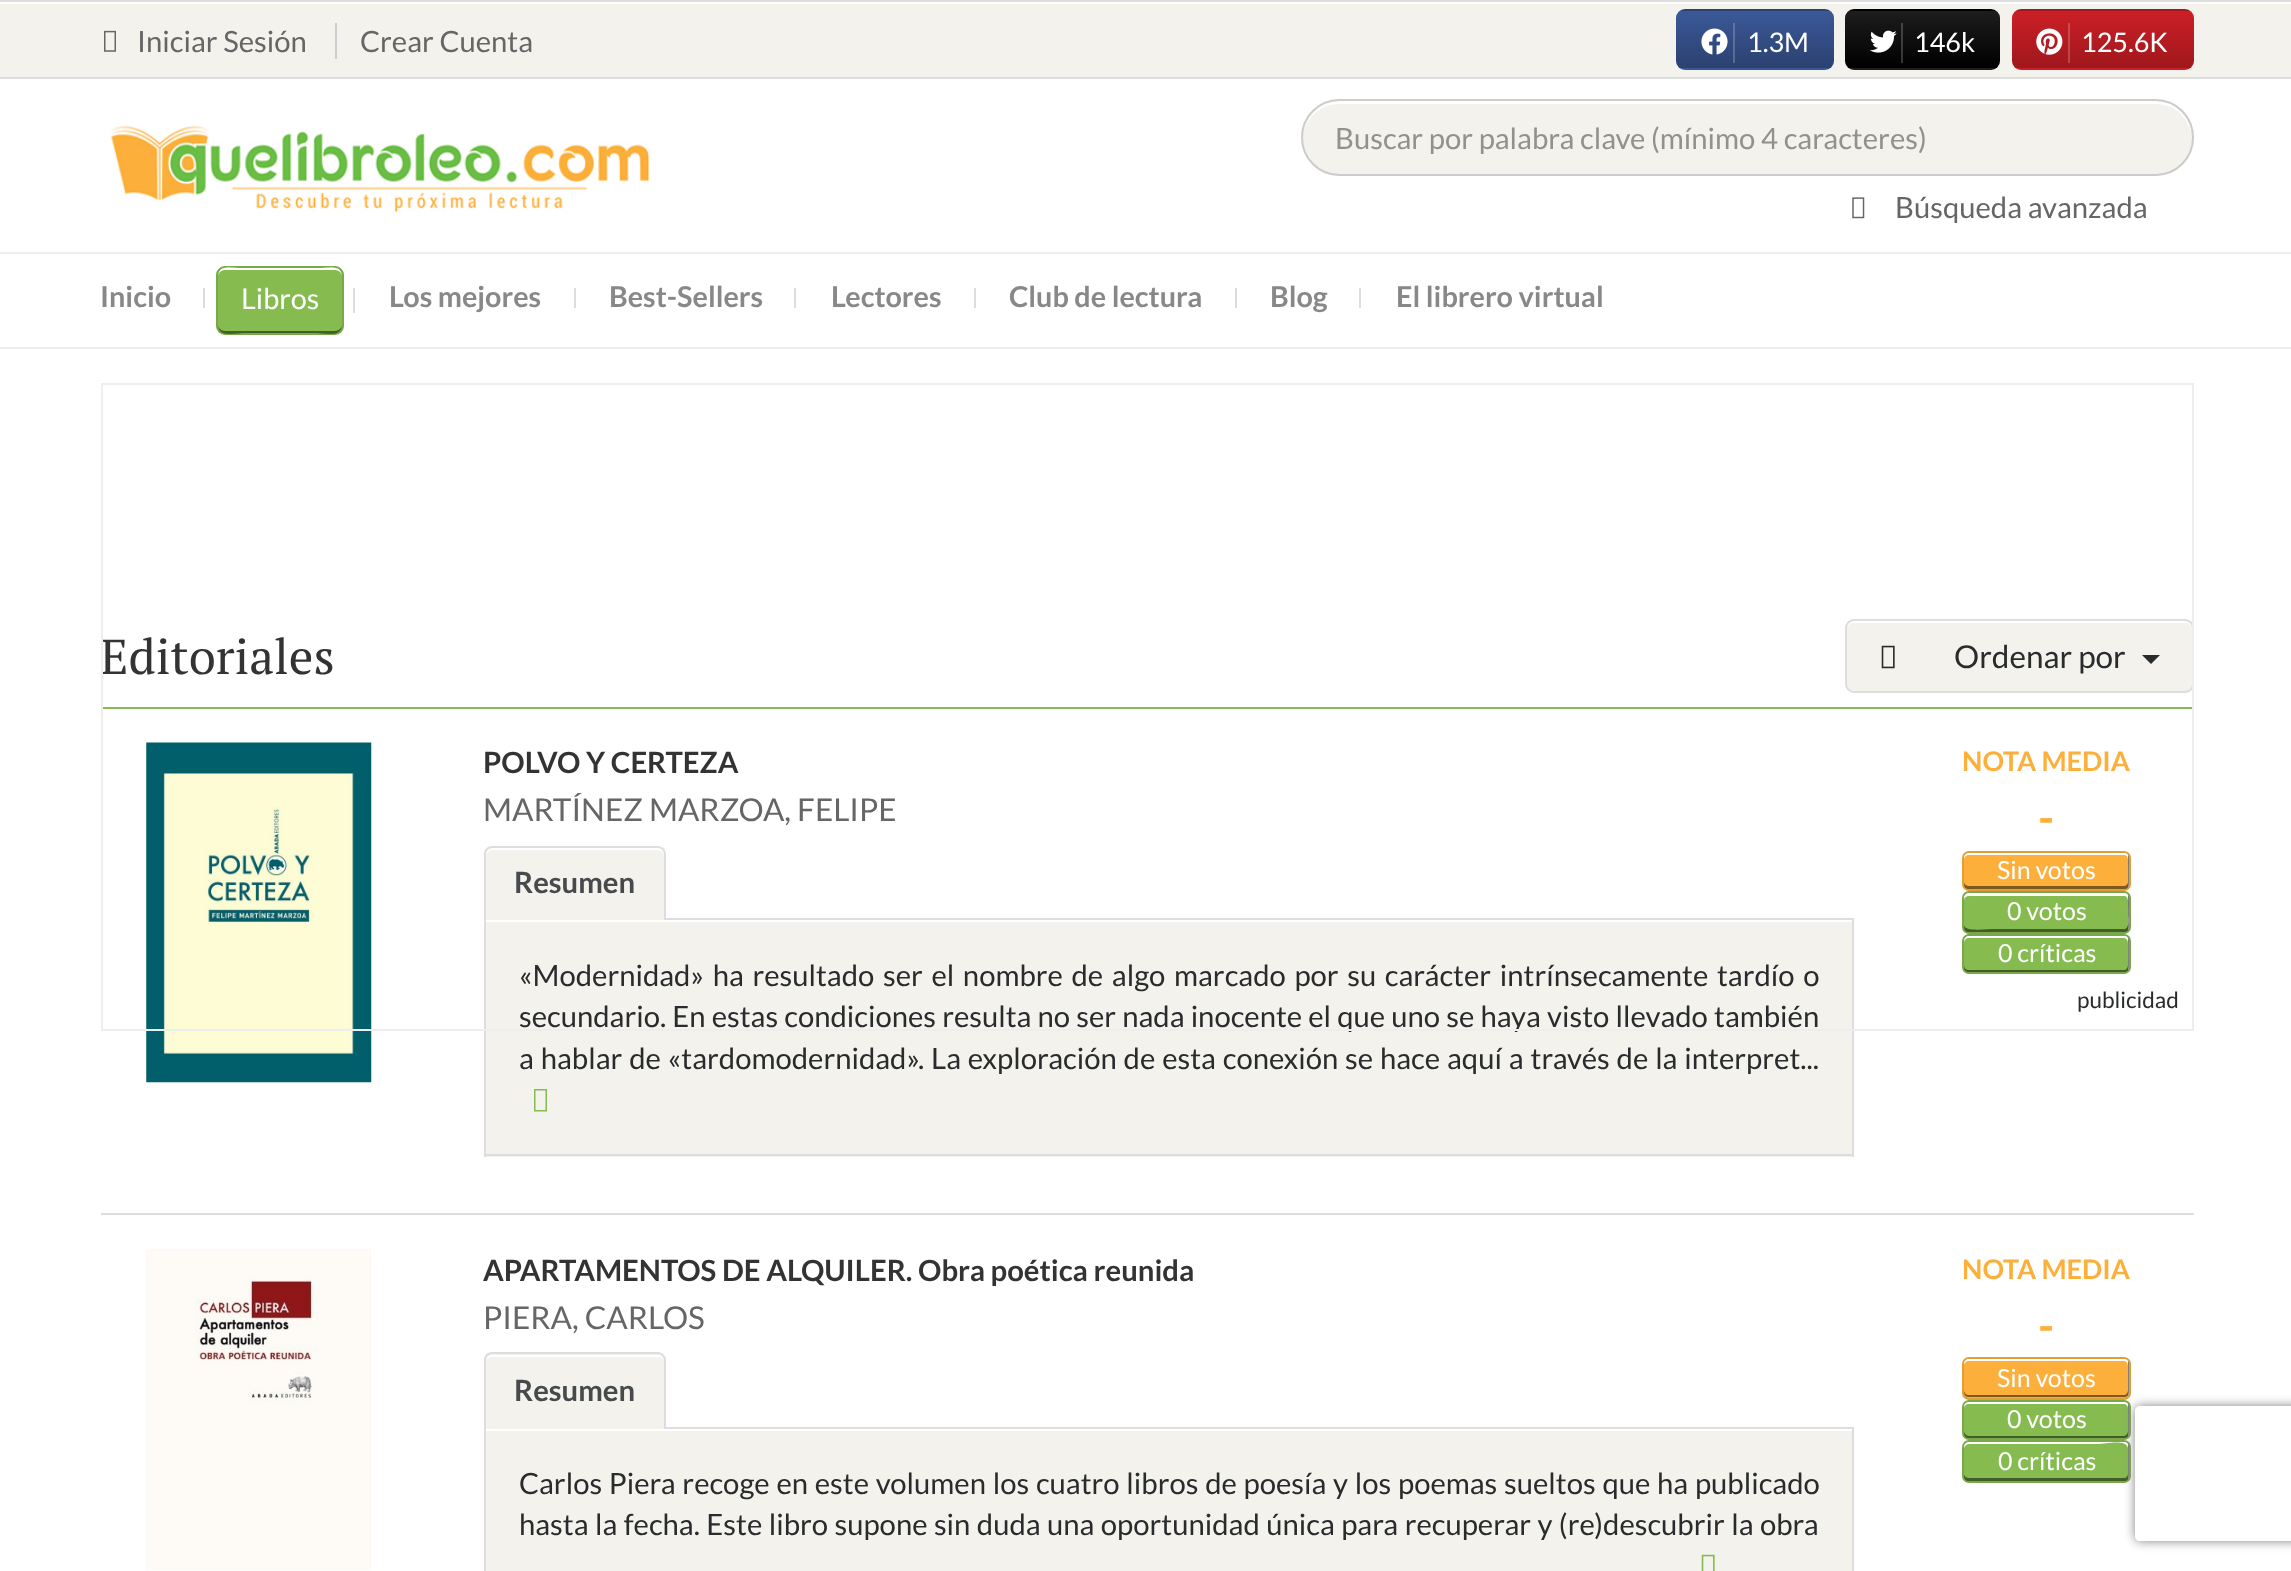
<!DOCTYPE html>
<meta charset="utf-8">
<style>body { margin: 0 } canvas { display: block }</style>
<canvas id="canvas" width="2291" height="1571"></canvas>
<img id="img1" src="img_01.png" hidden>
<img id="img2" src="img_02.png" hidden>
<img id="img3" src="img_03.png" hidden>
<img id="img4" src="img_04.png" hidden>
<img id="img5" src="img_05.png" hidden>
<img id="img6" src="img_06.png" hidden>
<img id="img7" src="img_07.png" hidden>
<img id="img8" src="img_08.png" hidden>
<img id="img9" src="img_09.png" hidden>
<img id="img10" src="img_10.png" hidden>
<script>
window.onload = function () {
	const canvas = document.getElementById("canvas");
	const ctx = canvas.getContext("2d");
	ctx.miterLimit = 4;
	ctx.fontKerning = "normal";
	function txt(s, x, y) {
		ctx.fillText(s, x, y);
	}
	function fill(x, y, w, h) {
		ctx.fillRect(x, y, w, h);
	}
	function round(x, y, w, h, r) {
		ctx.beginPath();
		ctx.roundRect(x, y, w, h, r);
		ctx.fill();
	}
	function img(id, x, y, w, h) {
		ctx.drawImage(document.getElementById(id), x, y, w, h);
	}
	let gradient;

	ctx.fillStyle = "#FFFFFF";
	fill(0, 0, 2291, 1571);
	ctx.fillStyle = "#F3F2ED";
	fill(0, 4, 2291, 73);
	ctx.fillStyle = "#DDDDDD";
	fill(0, 0, 2291, 2);
	fill(0, 77, 2291, 2);
	ctx.fillStyle = "#CCCCCC";
	fill(335, 23, 2, 36);
	img("img1", 104, 30, 12, 22);
	ctx.save();
	ctx.beginPath();
	ctx.roundRect(1676, 9, 158, 61, 9);
	ctx.clip();
	gradient = ctx.createLinearGradient(1755, -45, 1755, 11);
	gradient.addColorStop(0, "#3B5998");
	gradient.addColorStop(1, "#2B4170");
	ctx.fillStyle = gradient;
	fill(1676, 9, 158, 2);
	gradient = ctx.createLinearGradient(1755, 11, 1755, 68);
	gradient.addColorStop(0, "#3B5998");
	gradient.addColorStop(1, "#2B4170");
	ctx.fillStyle = gradient;
	fill(1676, 11, 158, 57);
	ctx.restore();
	gradient = ctx.createLinearGradient(1755, 11, 1755, 68);
	gradient.addColorStop(0, "#627AAD");
	gradient.addColorStop(1, "#55678D");
	ctx.fillStyle = gradient;
	fill(1733, 23, 2, 40);
	ctx.save();
	ctx.beginPath();
	ctx.roundRect(1676, 9, 158, 61, 9);
	ctx.clip();
	gradient = ctx.createLinearGradient(1755, 67, 1755, 124);
	gradient.addColorStop(0, "#3B5998");
	gradient.addColorStop(1, "#2B4170");
	ctx.fillStyle = gradient;
	fill(1676, 68, 158, 2);
	ctx.restore();
	img("img2", 1701, 28, 27, 27);
	ctx.save();
	ctx.beginPath();
	ctx.roundRect(1845, 9, 155, 61, 9);
	ctx.clip();
	gradient = ctx.createLinearGradient(1923, -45, 1923, 11);
	gradient.addColorStop(0, "#1D1D1D");
	gradient.addColorStop(1, "#000000");
	ctx.fillStyle = gradient;
	fill(1845, 9, 155, 2);
	gradient = ctx.createLinearGradient(1923, 11, 1923, 68);
	gradient.addColorStop(0, "#1D1D1D");
	gradient.addColorStop(1, "#000000");
	ctx.fillStyle = gradient;
	fill(1845, 11, 155, 57);
	ctx.restore();
	gradient = ctx.createLinearGradient(1923, 11, 1923, 68);
	gradient.addColorStop(0, "#4A4A4A");
	gradient.addColorStop(1, "#333333");
	ctx.fillStyle = gradient;
	fill(1901, 23, 2, 40);
	ctx.save();
	ctx.beginPath();
	ctx.roundRect(1845, 9, 155, 61, 9);
	ctx.clip();
	gradient = ctx.createLinearGradient(1923, 67, 1923, 124);
	gradient.addColorStop(0, "#1D1D1D");
	gradient.addColorStop(1, "#000000");
	ctx.fillStyle = gradient;
	fill(1845, 68, 155, 2);
	ctx.restore();
	img("img3", 1870, 30, 27, 23);
	ctx.save();
	ctx.beginPath();
	ctx.roundRect(2012, 9, 182, 61, 9);
	ctx.clip();
	gradient = ctx.createLinearGradient(2103, -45, 2103, 11);
	gradient.addColorStop(0, "#CB2027");
	gradient.addColorStop(1, "#A0171C");
	ctx.fillStyle = gradient;
	fill(2012, 9, 182, 2);
	gradient = ctx.createLinearGradient(2103, 11, 2103, 68);
	gradient.addColorStop(0, "#CB2027");
	gradient.addColorStop(1, "#A0171C");
	ctx.fillStyle = gradient;
	fill(2012, 11, 182, 57);
	ctx.restore();
	gradient = ctx.createLinearGradient(2103, 11, 2103, 68);
	gradient.addColorStop(0, "#D54D52");
	gradient.addColorStop(1, "#B34549");
	ctx.fillStyle = gradient;
	fill(2068, 23, 2, 40);
	ctx.save();
	ctx.beginPath();
	ctx.roundRect(2012, 9, 182, 61, 9);
	ctx.clip();
	gradient = ctx.createLinearGradient(2103, 67, 2103, 124);
	gradient.addColorStop(0, "#CB2027");
	gradient.addColorStop(1, "#A0171C");
	ctx.fillStyle = gradient;
	fill(2012, 68, 182, 2);
	ctx.restore();
	img("img4", 2036, 28, 27, 27);
	img("img5", 110, 126, 540, 87);
	ctx.fillStyle = "#F3F2ED";
	round(1301, 99, 893, 77, 38.5);
	ctx.fillStyle = "#FFFFFF";
	ctx.beginPath();
	ctx.moveTo(1339, 104);
	ctx.lineTo(2156, 104);
	ctx.bezierCurveTo(2175, 104, 2191, 119, 2192, 139);
	ctx.bezierCurveTo(2193, 118, 2176, 101, 2156, 101);
	ctx.lineTo(1339, 101);
	ctx.bezierCurveTo(1319, 101, 1302, 118, 1303, 138);
	ctx.bezierCurveTo(1304, 119, 1320, 104, 1339, 104);
	ctx.closePath();
	ctx.fill();
	ctx.beginPath();
	ctx.roundRect(1302, 100, 891, 75, 37.5);
	ctx.strokeStyle = "#CCCCCC";
	ctx.lineWidth = 2;
	ctx.stroke();
	img("img6", 1852, 197, 13, 22);
	ctx.fillStyle = "#EEEEEE";
	fill(0, 252, 2291, 2);
	fill(0, 347, 2291, 2);
	ctx.fillStyle = "#DDDDDD";
	fill(203, 288, 2, 20);
	ctx.fillStyle = "#86BB50";
	round(216, 266, 128, 69, 9);
	ctx.fillStyle = "#FFFFFF";
	ctx.beginPath();
	ctx.moveTo(225, 270);
	ctx.lineTo(335, 270);
	ctx.bezierCurveTo(339, 270, 342, 273, 342, 277);
	ctx.bezierCurveTo(342, 263, 327, 268, 317, 268);
	ctx.lineTo(243, 268);
	ctx.bezierCurveTo(233, 268, 218, 263, 218, 277);
	ctx.bezierCurveTo(218, 273, 221, 270, 225, 270);
	ctx.closePath();
	ctx.fill();
	ctx.fillStyle = "#435E28";
	ctx.beginPath();
	ctx.moveTo(218, 324);
	ctx.bezierCurveTo(218, 338, 233, 333, 243, 333);
	ctx.lineTo(317, 333);
	ctx.bezierCurveTo(327, 333, 342, 338, 342, 324);
	ctx.bezierCurveTo(342, 328, 339, 331, 335, 331);
	ctx.lineTo(225, 331);
	ctx.bezierCurveTo(221, 331, 218, 328, 218, 324);
	ctx.closePath();
	ctx.fill();
	ctx.beginPath();
	ctx.roundRect(217, 267, 126, 67, 8);
	ctx.strokeStyle = "rgba(0, 0, 0, 0.1)";
	ctx.stroke();
	ctx.fillStyle = "#DDDDDD";
	fill(353, 288, 2, 25);
	fill(574, 288, 2, 20);
	fill(794, 288, 2, 20);
	fill(974, 288, 2, 20);
	fill(1235, 288, 2, 20);
	fill(1359, 288, 2, 20);
	ctx.fillStyle = "#86BB50";
	fill(101, 707, 2093, 2);
	ctx.fillStyle = "#F3F2ED";
	round(1845, 619, 349, 74, 9);
	ctx.fillStyle = "#FFFFFF";
	ctx.beginPath();
	ctx.moveTo(1853, 623);
	ctx.lineTo(2186, 623);
	ctx.bezierCurveTo(2189, 623, 2192, 626, 2192, 629);
	ctx.lineTo(2192, 627);
	ctx.bezierCurveTo(2192, 624, 2189, 621, 2186, 621);
	ctx.lineTo(1853, 621);
	ctx.bezierCurveTo(1850, 621, 1847, 624, 1847, 627);
	ctx.lineTo(1847, 629);
	ctx.bezierCurveTo(1847, 626, 1850, 623, 1853, 623);
	ctx.closePath();
	ctx.fill();
	ctx.beginPath();
	ctx.roundRect(1846, 620, 347, 72, 8);
	ctx.strokeStyle = "#DDDDDD";
	ctx.stroke();
	img("img7", 1881, 645, 14, 24);
	ctx.fillStyle = "#292B2C";
	ctx.beginPath();
	ctx.moveTo(2142, 655);
	ctx.lineTo(2160, 655);
	ctx.lineTo(2151, 664);
	ctx.closePath();
	ctx.fill();
	ctx.fillStyle = "#DDDDDD";
	fill(101, 1213, 2093, 2);
	img("img8", 146, 742, 226, 341);
	fill(666, 918, 1188, 2);
	ctx.fillStyle = "#F3F2ED";
	ctx.beginPath();
	ctx.roundRect(484, 846, 182, 74, [9, 9, 0, 0]);
	ctx.fill();
	ctx.fillStyle = "#FFFFFF";
	ctx.beginPath();
	ctx.moveTo(492, 850);
	ctx.lineTo(658, 850);
	ctx.bezierCurveTo(661, 850, 664, 853, 664, 856);
	ctx.lineTo(664, 854);
	ctx.bezierCurveTo(664, 851, 661, 848, 658, 848);
	ctx.lineTo(492, 848);
	ctx.bezierCurveTo(489, 848, 486, 851, 486, 854);
	ctx.lineTo(486, 856);
	ctx.bezierCurveTo(486, 853, 489, 850, 492, 850);
	ctx.closePath();
	ctx.fill();
	ctx.fillStyle = "#DDDDDD";
	ctx.beginPath();
	ctx.moveTo(492, 846);
	ctx.lineTo(658, 846);
	ctx.bezierCurveTo(662, 846, 666, 850, 666, 854);
	ctx.lineTo(666, 920);
	ctx.lineTo(484, 920);
	ctx.lineTo(484, 854);
	ctx.bezierCurveTo(484, 850, 487, 846, 492, 846);
	ctx.closePath();
	ctx.moveTo(492, 848);
	ctx.lineTo(658, 848);
	ctx.bezierCurveTo(661, 848, 664, 851, 664, 854);
	ctx.lineTo(664, 920);
	ctx.lineTo(486, 920);
	ctx.lineTo(486, 854);
	ctx.bezierCurveTo(486, 851, 489, 848, 492, 848);
	ctx.closePath();
	ctx.fill("evenodd");
	ctx.fillStyle = "#F3F2ED";
	fill(486, 922, 1366, 235);
	ctx.fillStyle = "#DDDDDD";
	fill(1852, 920, 2, 237);
	fill(484, 1154, 1370, 2);
	fill(484, 920, 2, 237);
	ctx.fillStyle = "#86BB50";
	ctx.beginPath();
	ctx.moveTo(534, 1111.5);
	ctx.lineTo(534, 1089);
	ctx.lineTo(547, 1089);
	ctx.lineTo(547, 1111.5);
	ctx.closePath();
	ctx.moveTo(535.5, 1110);
	ctx.lineTo(545.5, 1110);
	ctx.lineTo(545.5, 1090.5);
	ctx.lineTo(535.5, 1090.5);
	ctx.closePath();
	ctx.fill();
	ctx.fillStyle = "#FCB03B";
	round(1962, 851, 169, 40, 7);
	ctx.fillStyle = "#FFFFFF";
	ctx.beginPath();
	ctx.moveTo(1969, 855);
	ctx.lineTo(2124, 855);
	ctx.bezierCurveTo(2130, 855, 2128, 866, 2128, 869);
	ctx.lineTo(2128, 887);
	ctx.bezierCurveTo(2129, 886, 2129, 885, 2129, 884);
	ctx.lineTo(2129, 858);
	ctx.bezierCurveTo(2129, 855, 2127, 853, 2124, 853);
	ctx.lineTo(1969, 853);
	ctx.bezierCurveTo(1966, 853, 1964, 855, 1964, 858);
	ctx.lineTo(1964, 860);
	ctx.bezierCurveTo(1964, 857, 1966, 855, 1969, 855);
	ctx.closePath();
	ctx.fill();
	ctx.fillStyle = "rgba(0, 0, 0, 0.5)";
	ctx.beginPath();
	ctx.moveTo(1964, 882);
	ctx.lineTo(1964, 884);
	ctx.bezierCurveTo(1964, 887, 1966, 889, 1969, 889);
	ctx.lineTo(2124, 889);
	ctx.bezierCurveTo(2127, 889, 2129, 887, 2129, 884);
	ctx.lineTo(2129, 858);
	ctx.bezierCurveTo(2129, 857, 2129, 856, 2128, 855);
	ctx.lineTo(2128, 882);
	ctx.bezierCurveTo(2128, 884, 2126, 886, 2124, 886);
	ctx.lineTo(1969, 886);
	ctx.bezierCurveTo(1966, 886, 1964, 884, 1964, 882);
	ctx.closePath();
	ctx.fill();
	ctx.beginPath();
	ctx.roundRect(1963, 852, 167, 38, 6);
	ctx.strokeStyle = "rgba(0, 0, 0, 0.1)";
	ctx.stroke();
	ctx.fillStyle = "#86BB50";
	round(1962, 891, 169, 43, 7);
	ctx.fillStyle = "#FFFFFF";
	ctx.beginPath();
	ctx.moveTo(1969, 896);
	ctx.lineTo(2124, 896);
	ctx.bezierCurveTo(2130, 896, 2128, 907, 2128, 910);
	ctx.lineTo(2128, 930);
	ctx.bezierCurveTo(2129, 929, 2129, 928, 2129, 927);
	ctx.lineTo(2129, 898);
	ctx.bezierCurveTo(2129, 895, 2127, 893, 2124, 893);
	ctx.lineTo(1969, 893);
	ctx.bezierCurveTo(1966, 893, 1964, 895, 1964, 898);
	ctx.lineTo(1964, 900);
	ctx.bezierCurveTo(1964, 898, 1966, 896, 1969, 896);
	ctx.closePath();
	ctx.fill();
	ctx.fillStyle = "rgba(0, 0, 0, 0.5)";
	ctx.beginPath();
	ctx.moveTo(1964, 925);
	ctx.lineTo(1964, 927);
	ctx.bezierCurveTo(1964, 930, 1966, 932, 1969, 932);
	ctx.lineTo(2124, 932);
	ctx.bezierCurveTo(2127, 932, 2129, 930, 2129, 927);
	ctx.lineTo(2129, 898);
	ctx.bezierCurveTo(2129, 897, 2129, 896, 2128, 895);
	ctx.lineTo(2128, 915);
	ctx.bezierCurveTo(2128, 918, 2130, 929, 2124, 929);
	ctx.lineTo(1995, 929);
	ctx.bezierCurveTo(1985, 929, 1964, 932, 1964, 925);
	ctx.closePath();
	ctx.fill();
	ctx.beginPath();
	ctx.roundRect(1963, 892, 167, 41, 6);
	ctx.stroke();
	ctx.fillStyle = "#86BB50";
	round(1962, 934, 169, 40, 7);
	ctx.fillStyle = "#FFFFFF";
	ctx.beginPath();
	ctx.moveTo(1969, 938);
	ctx.lineTo(2124, 938);
	ctx.bezierCurveTo(2126, 938, 2128, 940, 2128, 943);
	ctx.lineTo(2128, 970);
	ctx.bezierCurveTo(2129, 969, 2129, 968, 2129, 967);
	ctx.lineTo(2129, 941);
	ctx.bezierCurveTo(2129, 938, 2127, 936, 2124, 936);
	ctx.lineTo(1969, 936);
	ctx.bezierCurveTo(1966, 936, 1964, 938, 1964, 941);
	ctx.lineTo(1964, 943);
	ctx.bezierCurveTo(1964, 940, 1966, 938, 1969, 938);
	ctx.closePath();
	ctx.fill();
	ctx.fillStyle = "rgba(0, 0, 0, 0.5)";
	ctx.beginPath();
	ctx.moveTo(1964, 965);
	ctx.lineTo(1964, 967);
	ctx.bezierCurveTo(1964, 970, 1966, 972, 1969, 972);
	ctx.lineTo(2124, 972);
	ctx.bezierCurveTo(2127, 972, 2129, 970, 2129, 967);
	ctx.lineTo(2129, 941);
	ctx.bezierCurveTo(2129, 940, 2129, 939, 2128, 938);
	ctx.lineTo(2128, 965);
	ctx.bezierCurveTo(2128, 968, 2126, 970, 2124, 970);
	ctx.lineTo(1969, 970);
	ctx.bezierCurveTo(1966, 970, 1964, 968, 1964, 965);
	ctx.closePath();
	ctx.fill();
	ctx.beginPath();
	ctx.roundRect(1963, 935, 167, 38, 6);
	ctx.stroke();
	img("img9", 146, 1249, 225, 322);
	ctx.fillStyle = "#DDDDDD";
	fill(666, 1427, 1188, 2);
	ctx.fillStyle = "#F3F2ED";
	ctx.beginPath();
	ctx.roundRect(484, 1352, 182, 77, [9, 9, 0, 0]);
	ctx.fill();
	ctx.fillStyle = "#FFFFFF";
	ctx.beginPath();
	ctx.moveTo(492, 1357);
	ctx.lineTo(658, 1357);
	ctx.bezierCurveTo(661, 1357, 664, 1359, 664, 1362);
	ctx.lineTo(664, 1361);
	ctx.bezierCurveTo(664, 1358, 661, 1355, 658, 1355);
	ctx.lineTo(492, 1355);
	ctx.bezierCurveTo(489, 1355, 486, 1358, 486, 1361);
	ctx.lineTo(486, 1362);
	ctx.bezierCurveTo(486, 1359, 489, 1357, 492, 1357);
	ctx.closePath();
	ctx.fill();
	ctx.fillStyle = "#DDDDDD";
	ctx.beginPath();
	ctx.moveTo(492, 1352);
	ctx.lineTo(658, 1352);
	ctx.bezierCurveTo(662, 1352, 666, 1356, 666, 1360);
	ctx.lineTo(666, 1429);
	ctx.lineTo(484, 1429);
	ctx.lineTo(484, 1360);
	ctx.bezierCurveTo(484, 1356, 487, 1352, 492, 1352);
	ctx.closePath();
	ctx.moveTo(492, 1354);
	ctx.lineTo(658, 1354);
	ctx.bezierCurveTo(661, 1354, 664, 1357, 664, 1360);
	ctx.lineTo(664, 1429);
	ctx.lineTo(486, 1429);
	ctx.lineTo(486, 1360);
	ctx.bezierCurveTo(486, 1357, 489, 1354, 492, 1354);
	ctx.closePath();
	ctx.fill("evenodd");
	ctx.fillStyle = "#F3F2ED";
	fill(486, 1431, 1366, 140);
	ctx.fillStyle = "#DDDDDD";
	fill(1852, 1429, 2, 142);
	fill(484, 1429, 2, 142);
	img("img10", 1701, 1554, 14, 17);
	ctx.fillStyle = "#FCB03B";
	round(1962, 1357, 169, 43, 7);
	ctx.fillStyle = "#FFFFFF";
	ctx.beginPath();
	ctx.moveTo(1969, 1361);
	ctx.lineTo(2124, 1361);
	ctx.bezierCurveTo(2126, 1361, 2128, 1363, 2128, 1366);
	ctx.lineTo(2128, 1395);
	ctx.bezierCurveTo(2129, 1394, 2129, 1393, 2129, 1392);
	ctx.lineTo(2129, 1364);
	ctx.bezierCurveTo(2129, 1361, 2127, 1359, 2124, 1359);
	ctx.lineTo(1969, 1359);
	ctx.bezierCurveTo(1966, 1359, 1964, 1361, 1964, 1364);
	ctx.lineTo(1964, 1366);
	ctx.bezierCurveTo(1964, 1363, 1966, 1361, 1969, 1361);
	ctx.closePath();
	ctx.fill();
	ctx.fillStyle = "rgba(0, 0, 0, 0.5)";
	ctx.beginPath();
	ctx.moveTo(1964, 1390);
	ctx.lineTo(1964, 1392);
	ctx.bezierCurveTo(1964, 1395, 1966, 1397, 1969, 1397);
	ctx.lineTo(2124, 1397);
	ctx.bezierCurveTo(2127, 1397, 2129, 1395, 2129, 1392);
	ctx.lineTo(2129, 1364);
	ctx.bezierCurveTo(2129, 1363, 2129, 1362, 2128, 1361);
	ctx.lineTo(2128, 1390);
	ctx.bezierCurveTo(2128, 1393, 2126, 1395, 2124, 1395);
	ctx.lineTo(1969, 1395);
	ctx.bezierCurveTo(1966, 1395, 1964, 1393, 1964, 1390);
	ctx.closePath();
	ctx.fill();
	ctx.beginPath();
	ctx.roundRect(1963, 1358, 167, 41, 6);
	ctx.stroke();
	ctx.fillStyle = "#86BB50";
	round(1962, 1400, 169, 40, 7);
	ctx.fillStyle = "#FFFFFF";
	ctx.beginPath();
	ctx.moveTo(1969, 1404);
	ctx.lineTo(2124, 1404);
	ctx.bezierCurveTo(2126, 1404, 2128, 1406, 2128, 1408);
	ctx.lineTo(2128, 1436);
	ctx.bezierCurveTo(2129, 1435, 2129, 1434, 2129, 1433);
	ctx.lineTo(2129, 1407);
	ctx.bezierCurveTo(2129, 1404, 2127, 1402, 2124, 1402);
	ctx.lineTo(1969, 1402);
	ctx.bezierCurveTo(1966, 1402, 1964, 1404, 1964, 1407);
	ctx.lineTo(1964, 1408);
	ctx.bezierCurveTo(1964, 1406, 1966, 1404, 1969, 1404);
	ctx.closePath();
	ctx.fill();
	ctx.fillStyle = "rgba(0, 0, 0, 0.5)";
	ctx.beginPath();
	ctx.moveTo(1964, 1431);
	ctx.lineTo(1964, 1433);
	ctx.bezierCurveTo(1964, 1436, 1966, 1438, 1969, 1438);
	ctx.lineTo(2124, 1438);
	ctx.bezierCurveTo(2127, 1438, 2129, 1436, 2129, 1433);
	ctx.lineTo(2129, 1407);
	ctx.bezierCurveTo(2129, 1406, 2129, 1405, 2128, 1404);
	ctx.lineTo(2128, 1431);
	ctx.bezierCurveTo(2128, 1433, 2126, 1436, 2124, 1436);
	ctx.lineTo(1969, 1436);
	ctx.bezierCurveTo(1966, 1436, 1964, 1433, 1964, 1431);
	ctx.closePath();
	ctx.fill();
	ctx.beginPath();
	ctx.roundRect(1963, 1401, 167, 38, 6);
	ctx.stroke();
	ctx.fillStyle = "#86BB50";
	round(1962, 1440, 169, 43, 7);
	ctx.fillStyle = "#FFFFFF";
	ctx.beginPath();
	ctx.moveTo(1969, 1444);
	ctx.lineTo(2098, 1444);
	ctx.bezierCurveTo(2106, 1444, 2126, 1439, 2128, 1448);
	ctx.lineTo(2128, 1479);
	ctx.bezierCurveTo(2129, 1478, 2129, 1477, 2129, 1476);
	ctx.lineTo(2129, 1447);
	ctx.bezierCurveTo(2129, 1444, 2127, 1442, 2124, 1442);
	ctx.lineTo(1969, 1442);
	ctx.bezierCurveTo(1966, 1442, 1964, 1444, 1964, 1447);
	ctx.lineTo(1964, 1449);
	ctx.bezierCurveTo(1964, 1447, 1966, 1444, 1969, 1444);
	ctx.closePath();
	ctx.fill();
	ctx.fillStyle = "rgba(0, 0, 0, 0.5)";
	ctx.beginPath();
	ctx.moveTo(1964, 1474);
	ctx.lineTo(1964, 1476);
	ctx.bezierCurveTo(1964, 1479, 1966, 1481, 1969, 1481);
	ctx.lineTo(2124, 1481);
	ctx.bezierCurveTo(2127, 1481, 2129, 1479, 2129, 1476);
	ctx.lineTo(2129, 1447);
	ctx.bezierCurveTo(2129, 1446, 2129, 1445, 2128, 1444);
	ctx.lineTo(2128, 1474);
	ctx.bezierCurveTo(2128, 1476, 2126, 1478, 2124, 1478);
	ctx.lineTo(1969, 1478);
	ctx.bezierCurveTo(1966, 1478, 1964, 1476, 1964, 1474);
	ctx.closePath();
	ctx.fill();
	ctx.beginPath();
	ctx.roundRect(1963, 1441, 167, 41, 6);
	ctx.stroke();
	ctx.save();
	ctx.beginPath();
	ctx.moveTo(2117, 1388);
	ctx.lineTo(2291, 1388);
	ctx.lineTo(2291, 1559);
	ctx.lineTo(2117, 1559);
	ctx.closePath();
	ctx.moveTo(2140, 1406);
	ctx.lineTo(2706, 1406);
	ctx.bezierCurveTo(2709, 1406, 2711, 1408, 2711, 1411);
	ctx.lineTo(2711, 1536);
	ctx.bezierCurveTo(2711, 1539, 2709, 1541, 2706, 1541);
	ctx.lineTo(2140, 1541);
	ctx.bezierCurveTo(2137, 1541, 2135, 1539, 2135, 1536);
	ctx.lineTo(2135, 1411);
	ctx.bezierCurveTo(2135, 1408, 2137, 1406, 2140, 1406);
	ctx.closePath();
	ctx.clip("evenodd");
	ctx.fillStyle = "#808080";
	ctx.filter = "blur(5.5px)";
	ctx.beginPath();
	ctx.roundRect(2135, 1406, 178, 135, 5);
	ctx.fill();
	ctx.filter = "none";
	ctx.restore();
	ctx.font = "29.25px Lato";
	ctx.fillStyle = "#666666";
	txt("Iniciar Sesión", 137, 52);
	txt("Crear Cuenta", 360, 52);
	ctx.font = "27px Lato";
	ctx.fillStyle = "#FFFFFF";
	txt("1.3M", 1747, 52);
	txt("146k", 1914, 52);
	txt("125.6K", 2081, 52);
	ctx.font = "29.25px Lato";
	ctx.fillStyle = "#92918E";
	txt("Buscar por palabra clave (mínimo 4 caracteres)", 1335, 149);
	ctx.fillStyle = "#666666";
	txt("Búsqueda avanzada", 1895, 218);
	ctx.font = "bold 28.75px Lato";
	ctx.fillStyle = "#888888";
	txt("Inicio", 100, 307);
	ctx.font = "28.75px Lato";
	ctx.fillStyle = "#FFFFFF";
	txt("Libros", 241, 309);
	ctx.font = "bold 28.75px Lato";
	ctx.fillStyle = "#888888";
	txt("Los mejores", 389, 307);
	txt("Best-Sellers", 609, 307);
	txt("Lectores", 831, 307);
	txt("Club de lectura", 1009, 307);
	txt("Blog", 1270, 307);
	txt("El librero virtual", 1396, 307);
	ctx.font = "49px PT Serif";
	ctx.fillStyle = "#333333";
	txt("Editoriales", 100, 674);
	ctx.font = "31.5px Lato";
	ctx.fillStyle = "#292B2C";
	txt("Ordenar por", 1954, 668);
	ctx.font = "bold 29.25px Lato";
	ctx.fillStyle = "#333333";
	txt("POLVO Y CERTEZA", 483, 773);
	ctx.font = "31.5px Lato";
	ctx.fillStyle = "#666666";
	txt("MARTÍNEZ MARZOA, FELIPE", 483, 821);
	ctx.font = "bold 29.25px Lato";
	ctx.fillStyle = "#464A4C";
	txt("Resumen", 514, 893);
	ctx.wordSpacing = "3px";
	ctx.font = "29.25px Lato";
	ctx.fillStyle = "#292B2C";
	txt("«Modernidad» ha resultado ser el nombre de algo marcado por su carácter intrínsecamente tardío o", 519, 986);
	ctx.wordSpacing = "0.5px";
	txt("secundario. En estas condiciones resulta no ser nada inocente el que uno se haya visto llevado también", 519, 1027);
	ctx.wordSpacing = "1.25px";
	txt("a hablar de «tardomodernidad». La exploración de esta conexión se hace aquí a través de la interpret...", 519, 1069);
	ctx.wordSpacing = "0px";
	ctx.font = "bold 27px Lato";
	ctx.fillStyle = "#FCB03B";
	txt("NOTA MEDIA", 1962, 771);
	ctx.font = "bold 45px Lato";
	txt("-", 2038, 834);
	ctx.font = "25px Lato";
	ctx.fillStyle = "#FFFFFF";
	txt("Sin votos", 1997, 879);
	txt("0 votos", 2007, 920);
	txt("0 críticas", 1998, 962);
	ctx.font = "bold 29.25px Lato";
	ctx.fillStyle = "#333333";
	txt("APARTAMENTOS DE ALQUILER. Obra poética reunida", 483, 1281);
	ctx.font = "31.5px Lato";
	ctx.fillStyle = "#666666";
	txt("PIERA, CARLOS", 483, 1329);
	ctx.font = "bold 29.25px Lato";
	ctx.fillStyle = "#464A4C";
	txt("Resumen", 514, 1401);
	ctx.wordSpacing = "1.1px";
	ctx.font = "29.25px Lato";
	ctx.fillStyle = "#292B2C";
	txt("Carlos Piera recoge en este volumen los cuatro libros de poesía y los poemas sueltos que ha publicado", 519, 1494);
	ctx.wordSpacing = "0.8px";
	txt("hasta la fecha. Este libro supone sin duda una oportunidad única para recuperar y (re)descubrir la obra", 519, 1535);
	ctx.wordSpacing = "0px";
	ctx.font = "bold 27px Lato";
	ctx.fillStyle = "#FCB03B";
	txt("NOTA MEDIA", 1962, 1279);
	ctx.font = "bold 45px Lato";
	txt("-", 2038, 1342);
	ctx.font = "25px Lato";
	ctx.fillStyle = "#FFFFFF";
	txt("Sin votos", 1997, 1387);
	txt("0 votos", 2007, 1428);
	txt("0 críticas", 1998, 1470);
	ctx.strokeStyle = "#EEEEEE";
	ctx.strokeRect(102, 384, 2091, 646);
	ctx.font = "22.5px Lato";
	ctx.fillStyle = "#292B2C";
	txt("publicidad", 2077, 1008);
};
</script>
